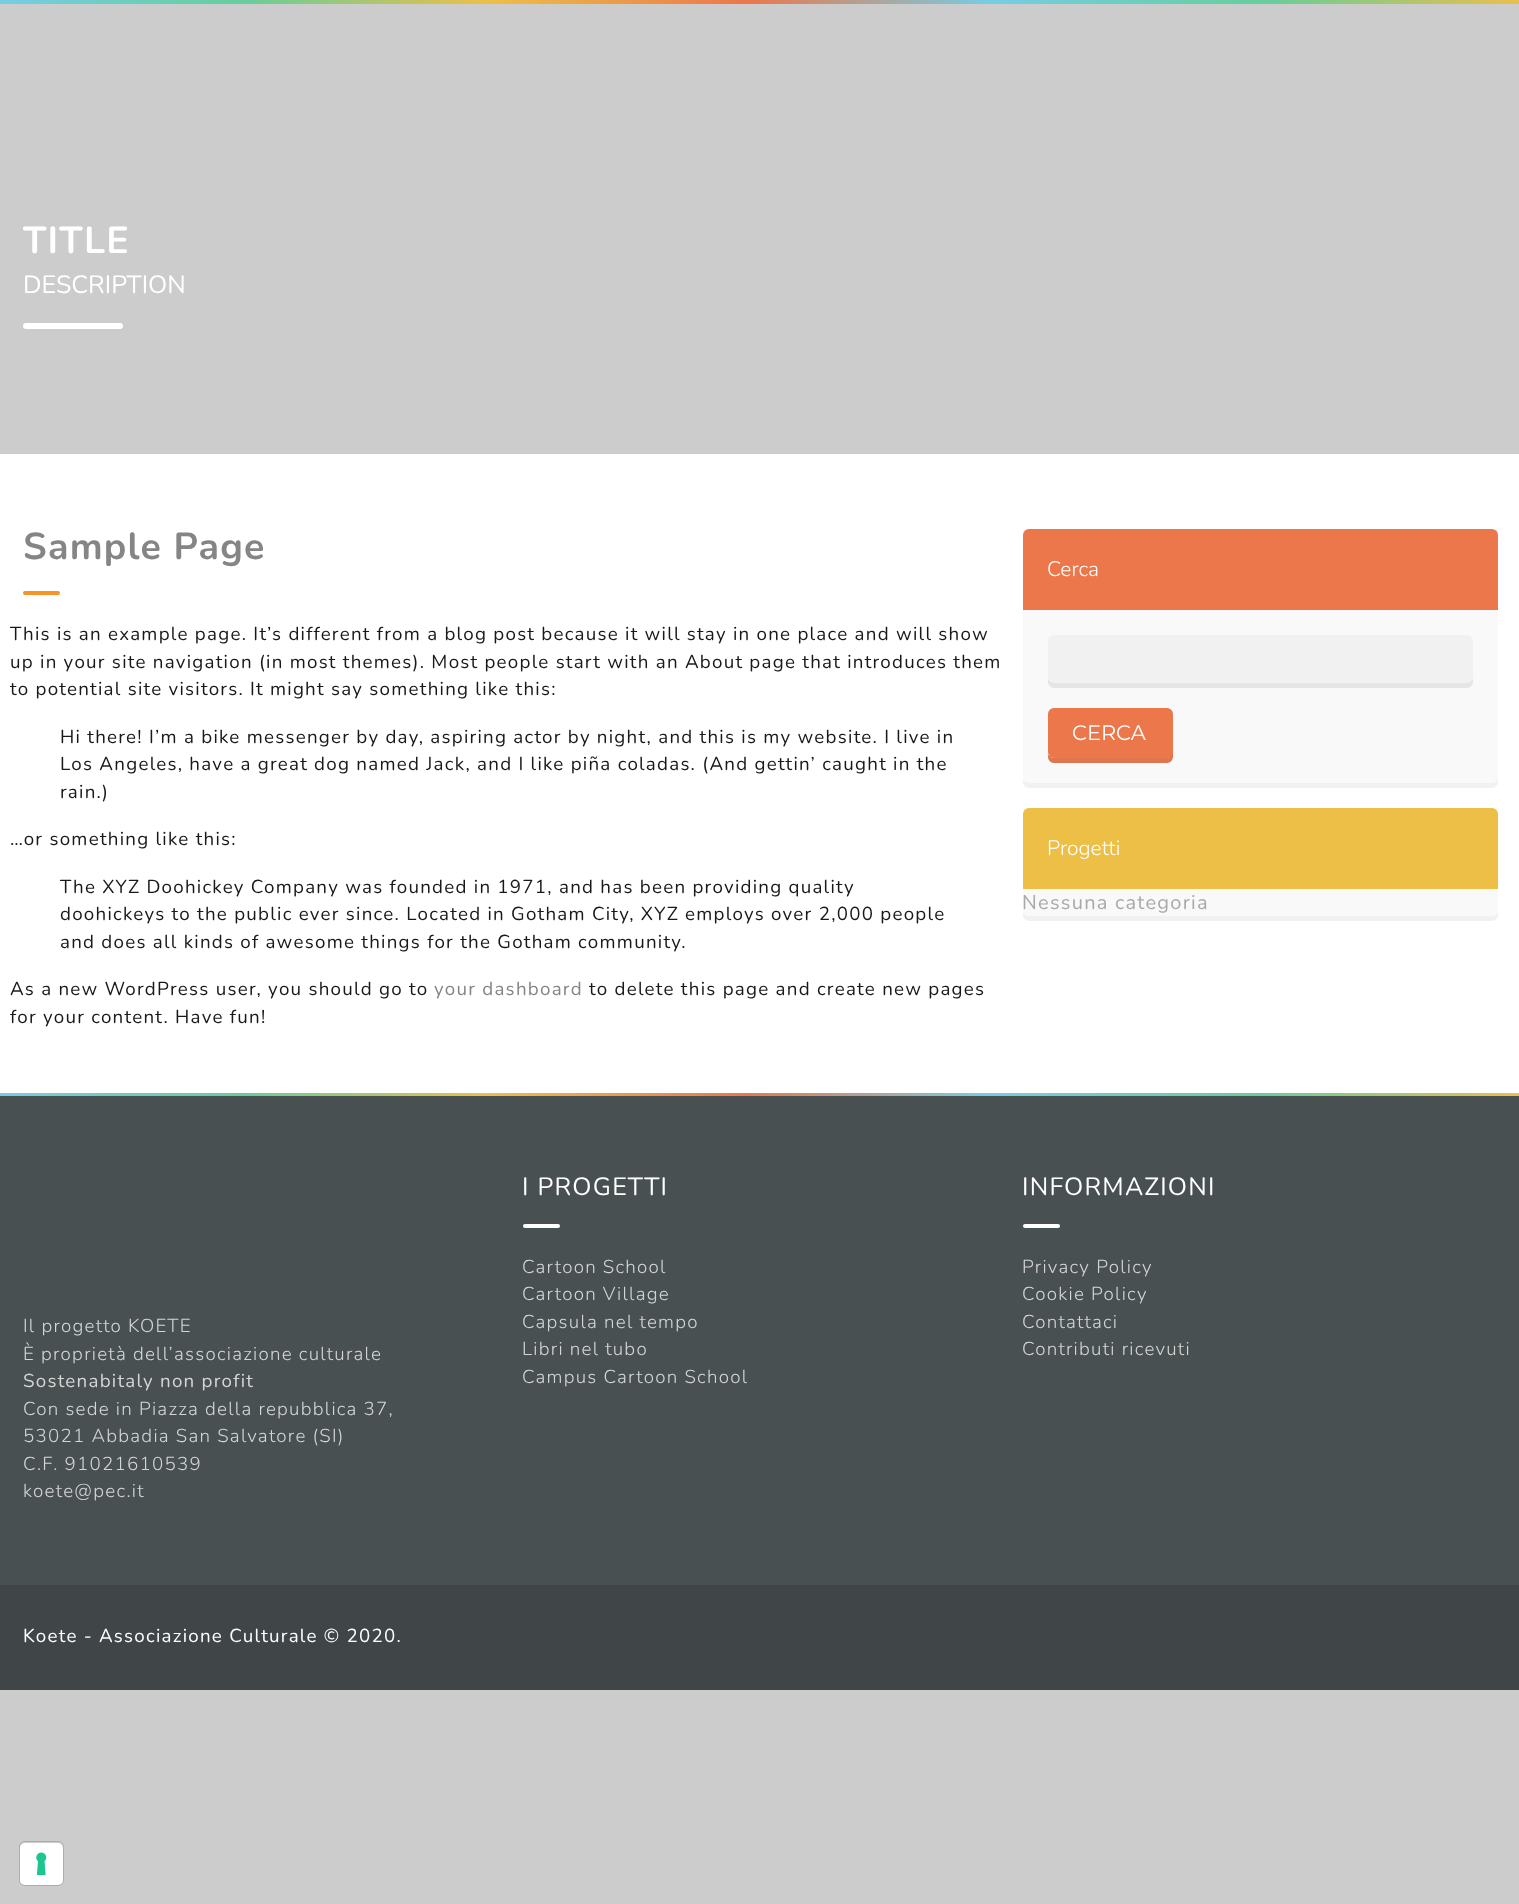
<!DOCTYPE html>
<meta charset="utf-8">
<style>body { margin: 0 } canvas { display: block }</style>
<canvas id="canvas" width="1519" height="1904"></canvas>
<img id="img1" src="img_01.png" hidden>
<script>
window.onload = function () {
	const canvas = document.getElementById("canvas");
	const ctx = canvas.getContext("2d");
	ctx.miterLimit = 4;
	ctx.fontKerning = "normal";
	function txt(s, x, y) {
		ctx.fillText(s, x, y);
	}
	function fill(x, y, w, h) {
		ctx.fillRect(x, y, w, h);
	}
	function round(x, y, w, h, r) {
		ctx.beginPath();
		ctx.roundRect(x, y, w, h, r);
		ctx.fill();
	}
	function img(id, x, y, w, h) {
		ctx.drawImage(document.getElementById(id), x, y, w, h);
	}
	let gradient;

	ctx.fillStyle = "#CCCCCC";
	fill(0, 0, 1519, 1904);
	ctx.fillStyle = "#FFFFFF";
	fill(0, 454, 1519, 639);
	gradient = ctx.createLinearGradient(0, 1.9, 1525, 1.9);
	gradient.addColorStop(0, "#74CEE4");
	gradient.addColorStop(0.16, "#66CE9C");
	gradient.addColorStop(0.32, "#EDBF47");
	gradient.addColorStop(0.49, "#EC774B");
	gradient.addColorStop(0.65, "#74CEE4");
	gradient.addColorStop(0.83, "#66CE9C");
	gradient.addColorStop(1, "#EDBF47");
	ctx.fillStyle = gradient;
	fill(0, 0, 1519, 4);
	ctx.fillStyle = "#FFFFFF";
	round(23, 323, 100, 6, 3);
	ctx.fillStyle = "#F79425";
	round(23, 591, 37, 4, 2);
	ctx.fillStyle = "#F1F1F1";
	ctx.beginPath();
	ctx.moveTo(1023, 779);
	ctx.lineTo(1023, 782);
	ctx.bezierCurveTo(1023, 785, 1026, 788, 1029, 788);
	ctx.lineTo(1492, 788);
	ctx.bezierCurveTo(1495, 788, 1498, 785, 1498, 782);
	ctx.lineTo(1498, 540);
	ctx.lineTo(1498, 538);
	ctx.lineTo(1498, 776);
	ctx.bezierCurveTo(1498, 780, 1495, 782, 1491, 782);
	ctx.lineTo(1029, 782);
	ctx.bezierCurveTo(1026, 782, 1024, 781, 1023, 779);
	ctx.closePath();
	ctx.fill();
	ctx.fillStyle = "#F9F9F9";
	round(1023, 529, 475, 254, 6);
	ctx.fillStyle = "#EC774B";
	ctx.beginPath();
	ctx.roundRect(1023, 529, 475, 81, [6, 6, 0, 0]);
	ctx.fill();
	ctx.fillStyle = "#E5E5E5";
	ctx.beginPath();
	ctx.moveTo(1048, 679);
	ctx.lineTo(1048, 682);
	ctx.bezierCurveTo(1048, 685, 1051, 688, 1054, 688);
	ctx.lineTo(1467, 688);
	ctx.bezierCurveTo(1470, 688, 1473, 685, 1473, 682);
	ctx.lineTo(1473, 646);
	ctx.lineTo(1472, 644);
	ctx.lineTo(1472, 676);
	ctx.bezierCurveTo(1472, 680, 1470, 682, 1466, 682);
	ctx.lineTo(1054, 682);
	ctx.bezierCurveTo(1051, 682, 1049, 681, 1048, 679);
	ctx.closePath();
	ctx.fill();
	ctx.fillStyle = "#F1F1F1";
	round(1048, 635, 425, 48, 6);
	ctx.fillStyle = "#DF764E";
	ctx.beginPath();
	ctx.moveTo(1048, 754);
	ctx.lineTo(1048, 757);
	ctx.bezierCurveTo(1048, 760, 1051, 763, 1054, 763);
	ctx.lineTo(1167, 763);
	ctx.bezierCurveTo(1170, 763, 1173, 760, 1173, 757);
	ctx.lineTo(1173, 719);
	ctx.lineTo(1172, 717);
	ctx.lineTo(1172, 751);
	ctx.bezierCurveTo(1172, 755, 1170, 758, 1166, 758);
	ctx.lineTo(1054, 758);
	ctx.bezierCurveTo(1051, 758, 1049, 756, 1048, 754);
	ctx.closePath();
	ctx.fill();
	ctx.fillStyle = "#EC774B";
	round(1048, 708, 125, 50, 6);
	ctx.fillStyle = "#F1F1F1";
	ctx.beginPath();
	ctx.moveTo(1023, 912);
	ctx.lineTo(1023, 915);
	ctx.bezierCurveTo(1023, 918, 1026, 921, 1029, 921);
	ctx.lineTo(1492, 921);
	ctx.bezierCurveTo(1495, 921, 1498, 918, 1498, 915);
	ctx.lineTo(1498, 819);
	ctx.lineTo(1498, 817);
	ctx.lineTo(1498, 910);
	ctx.bezierCurveTo(1498, 913, 1495, 916, 1491, 916);
	ctx.lineTo(1029, 916);
	ctx.bezierCurveTo(1026, 916, 1024, 915, 1023, 912);
	ctx.closePath();
	ctx.fill();
	ctx.fillStyle = "#F9F9F9";
	round(1023, 808, 475, 108, 6);
	ctx.fillStyle = "#EDBF47";
	ctx.beginPath();
	ctx.roundRect(1023, 808, 475, 81, [6, 6, 0, 0]);
	ctx.fill();
	gradient = ctx.createLinearGradient(0, 1094, 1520, 1094);
	gradient.addColorStop(0, "#74CEE4");
	gradient.addColorStop(0.16, "#66CE9C");
	gradient.addColorStop(0.32, "#EDBF47");
	gradient.addColorStop(0.49, "#EC774B");
	gradient.addColorStop(0.65, "#74CEE4");
	gradient.addColorStop(0.83, "#66CE9C");
	gradient.addColorStop(1, "#EDBF47");
	ctx.fillStyle = gradient;
	fill(0, 1093, 1519, 3);
	ctx.fillStyle = "#495052";
	fill(0, 1096, 1519, 489);
	ctx.fillStyle = "#FFFFFF";
	round(523, 1224, 37, 4, 2);
	round(1023, 1224, 37, 4, 2);
	ctx.fillStyle = "#404547";
	fill(0, 1585, 1519, 105);
	ctx.beginPath();
	ctx.roundRect(19.5, 1841.5, 44, 44, 5.5);
	ctx.strokeStyle = "#ADADAD";
	ctx.stroke();
	ctx.fillStyle = "#FFFFFF";
	round(20, 1843, 43, 42, 5);
	img("img1", 36, 1852, 11, 23);
	ctx.letterSpacing = "1.25px";
	ctx.font = "bold 37.5px Nunito";
	txt("TITLE", 23, 253);
	ctx.letterSpacing = "0px";
	ctx.font = "25px Nunito";
	txt("DESCRIPTION", 23, 293);
	ctx.letterSpacing = "1.25px";
	ctx.font = "bold 37.5px Nunito";
	ctx.fillStyle = "#868585";
	txt("Sample Page", 23, 559);
	ctx.font = "18.75px Nunito";
	ctx.fillStyle = "#191919";
	txt("This is an example page. It’s different from a blog post because it will stay in one place and will show", 10, 640);
	txt("up in your site navigation (in most themes). Most people start with an About page that introduces them", 10, 668);
	txt("to potential site visitors. It might say something like this:", 10, 695);
	txt("Hi there! I’m a bike messenger by day, aspiring actor by night, and this is my website. I live in", 60, 743);
	txt("Los Angeles, have a great dog named Jack, and I like piña coladas. (And gettin’ caught in the", 60, 770);
	txt("rain.)", 60, 798);
	txt("…or something like this:", 10, 845);
	txt("The XYZ Doohickey Company was founded in 1971, and has been providing quality", 60, 893);
	txt("doohickeys to the public ever since. Located in Gotham City, XYZ employs over 2,000 people", 60, 920);
	txt("and does all kinds of awesome things for the Gotham community.", 60, 948);
	txt("As a new WordPress user, you should go to", 10, 995);
	ctx.fillStyle = "#868585";
	txt("your dashboard", 434, 995);
	ctx.fillStyle = "#191919";
	txt("to delete this page and create new pages", 589, 995);
	txt("for your content. Have fun!", 10, 1023);
	ctx.letterSpacing = "0px";
	ctx.font = "300 21px Nunito";
	ctx.fillStyle = "#FFFFFF";
	txt("Cerca", 1047, 576);
	ctx.font = "100 21px Montserrat";
	txt("CERCA", 1072, 740);
	ctx.font = "300 21px Nunito";
	txt("Progetti", 1047, 855);
	ctx.letterSpacing = "1.25px";
	ctx.font = "20px Nunito";
	ctx.fillStyle = "#A9A9A9";
	txt("Nessuna categoria", 1022, 909);
	ctx.font = "25px Nunito";
	ctx.fillStyle = "#FFFFFF";
	txt("I PROGETTI", 522, 1195);
	ctx.font = "300 18.75px Nunito";
	ctx.fillStyle = "#D5D5D5";
	txt("Cartoon School", 522, 1273);
	txt("Cartoon Village", 522, 1300);
	txt("Capsula nel tempo", 522, 1328);
	txt("Libri nel tubo", 522, 1355);
	txt("Campus Cartoon School", 522, 1383);
	ctx.font = "25px Nunito";
	ctx.fillStyle = "#FFFFFF";
	txt("INFORMAZIONI", 1022, 1195);
	ctx.font = "300 18.75px Nunito";
	ctx.fillStyle = "#D5D5D5";
	txt("Privacy Policy", 1022, 1273);
	txt("Cookie Policy", 1022, 1300);
	txt("Contattaci", 1022, 1328);
	txt("Contributi ricevuti", 1022, 1355);
	txt("Il progetto KOETE", 23, 1332);
	txt("È proprietà dell’associazione culturale", 23, 1360);
	ctx.font = "18.75px Nunito";
	txt("Sostenabitaly non profit", 23, 1387);
	ctx.font = "300 18.75px Nunito";
	txt("Con sede in Piazza della repubblica 37,", 23, 1415);
	txt("53021 Abbadia San Salvatore (SI)", 23, 1442);
	txt("C.F. 91021610539", 23, 1470);
	txt("koete@pec.it", 23, 1497);
	ctx.font = "18.75px Nunito";
	ctx.fillStyle = "#FFFFFF";
	txt("Koete - Associazione Culturale © 2020.", 23, 1642);
};
</script>
